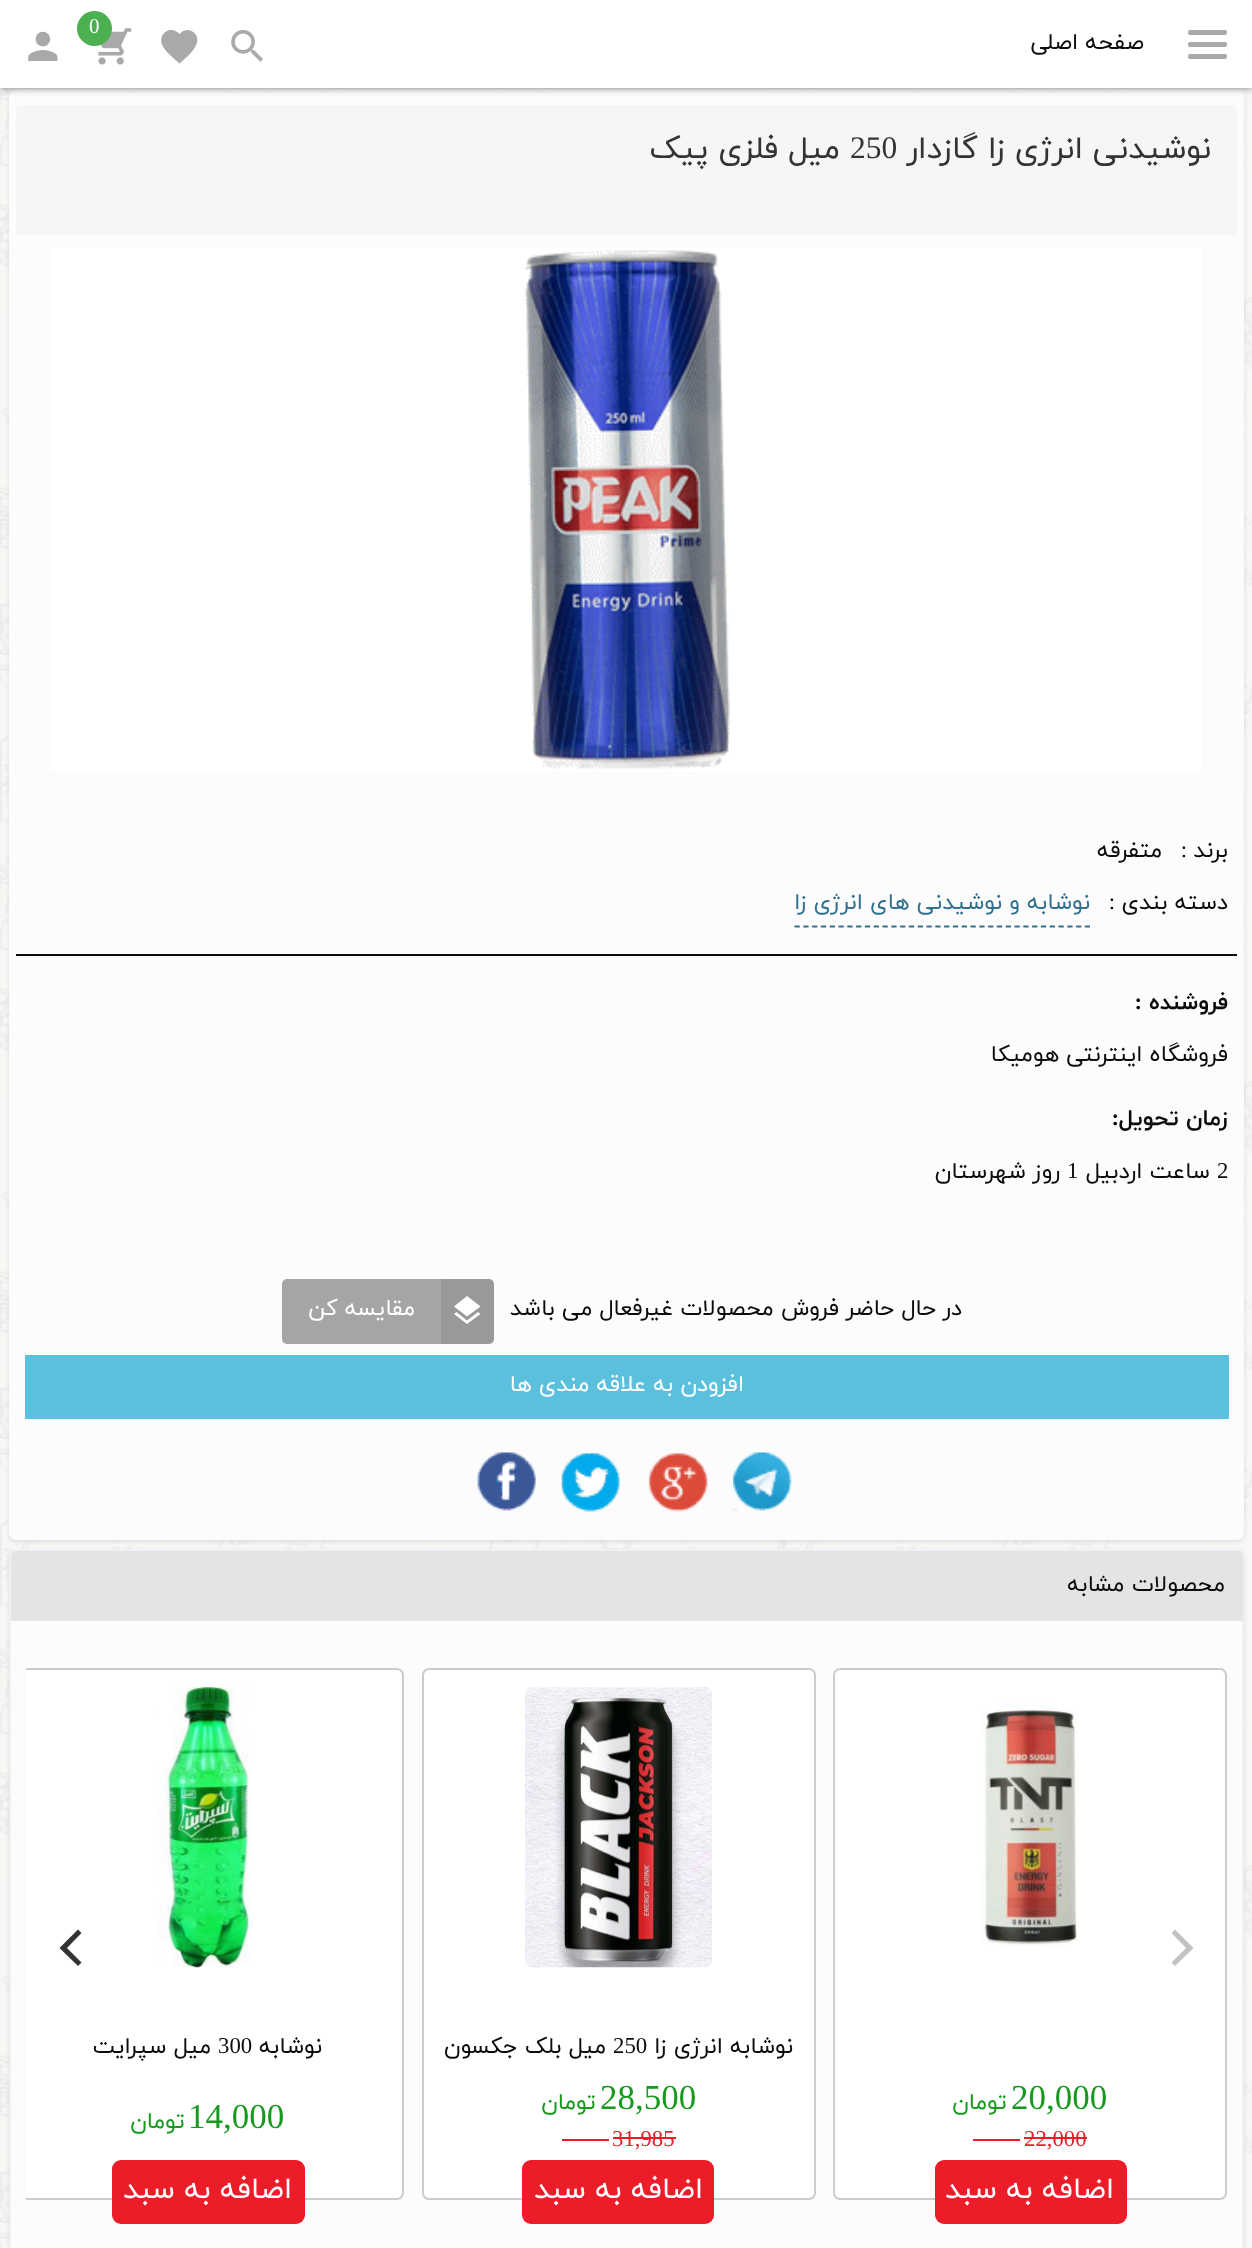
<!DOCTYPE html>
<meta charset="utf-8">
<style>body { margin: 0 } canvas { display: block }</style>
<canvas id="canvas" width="1252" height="2248"></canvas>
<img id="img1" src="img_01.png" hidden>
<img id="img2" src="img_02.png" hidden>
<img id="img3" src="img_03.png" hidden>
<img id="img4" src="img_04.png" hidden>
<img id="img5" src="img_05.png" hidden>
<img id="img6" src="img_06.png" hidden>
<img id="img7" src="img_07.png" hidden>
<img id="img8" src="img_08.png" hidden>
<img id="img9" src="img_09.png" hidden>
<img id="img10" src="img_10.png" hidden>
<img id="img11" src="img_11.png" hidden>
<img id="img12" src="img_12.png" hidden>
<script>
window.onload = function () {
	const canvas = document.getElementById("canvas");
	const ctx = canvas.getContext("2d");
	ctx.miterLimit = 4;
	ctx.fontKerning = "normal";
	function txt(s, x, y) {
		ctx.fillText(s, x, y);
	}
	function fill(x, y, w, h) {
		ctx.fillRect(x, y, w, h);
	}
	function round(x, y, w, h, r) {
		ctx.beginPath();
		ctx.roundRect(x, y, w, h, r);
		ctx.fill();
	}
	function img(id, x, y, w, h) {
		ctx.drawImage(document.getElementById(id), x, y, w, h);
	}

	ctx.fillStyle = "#FFFFFF";
	fill(0, 0, 1252, 2248);
	img("img1", 0, 88, 1252, 2160);
	ctx.fillStyle = "rgba(0, 0, 0, 0.1)";
	ctx.filter = "blur(2px)";
	ctx.beginPath();
	ctx.roundRect(9, 91, 1235, 1451, 7);
	ctx.fill();
	ctx.filter = "none";
	ctx.fillStyle = "#FCFCFC";
	round(9, 89, 1235, 1451, 7);
	ctx.fillStyle = "rgba(0, 0, 0, 0.4)";
	ctx.filter = "blur(3.5px)";
	ctx.beginPath();
	ctx.rect(0, 2, 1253, 87);
	ctx.fill();
	ctx.filter = "none";
	ctx.fillStyle = "#FFFFFF";
	fill(0, 0, 1252, 88);
	img("img2", 98, 28, 34, 37);
	ctx.fillStyle = "#4CAF50";
	ctx.beginPath();
	ctx.arc(94.5, 28.5, 17.5, 0, Math.PI * 2);
	ctx.fill();
	ctx.fillStyle = "#A8A9AB";
	round(1188, 30, 39, 5, 2);
	round(1188, 42, 39, 5, 2);
	round(1188, 54, 39, 5, 2);
	img("img3", 231, 30, 32, 32);
	ctx.beginPath();
	ctx.moveTo(179.5, 63.5);
	ctx.bezierCurveTo(174, 58.5, 165.5, 52, 162.5, 45.5);
	ctx.bezierCurveTo(157, 34, 171, 24, 179.5, 34);
	ctx.bezierCurveTo(187, 24.5, 201, 33, 196.5, 44);
	ctx.bezierCurveTo(193.5, 52, 185.5, 58, 179.5, 63.5);
	ctx.closePath();
	ctx.fill();
	img("img4", 28, 31, 30, 30);
	ctx.fillStyle = "#F5F6F7";
	round(16, 105, 1221, 130, 4);
	ctx.fillStyle = "#FFFFFF";
	fill(51, 247, 1151, 525);
	img("img5", 524, 250, 207, 519);
	ctx.fillStyle = "#0D0C0C";
	fill(16, 954, 1221, 2);
	ctx.beginPath();
	ctx.moveTo(794.5, 926.5);
	ctx.lineTo(1090, 926.5);
	ctx.strokeStyle = "#31708F";
	ctx.lineWidth = 1.8;
	ctx.setLineDash([5.25, 3.55]);
	ctx.stroke();
	ctx.fillStyle = "#999999";
	ctx.beginPath();
	ctx.roundRect(441, 1279, 53, 65, [0, 5, 5, 0]);
	ctx.fill();
	ctx.fillStyle = "#FFFFFF";
	ctx.beginPath();
	ctx.moveTo(467, 1316.5);
	ctx.lineTo(454, 1306.5);
	ctx.lineTo(467, 1296);
	ctx.lineTo(480.5, 1306.5);
	ctx.closePath();
	ctx.moveTo(467, 1320.5);
	ctx.lineTo(478, 1312);
	ctx.lineTo(480.5, 1314);
	ctx.lineTo(467, 1324);
	ctx.lineTo(454, 1314);
	ctx.lineTo(456.5, 1312);
	ctx.closePath();
	ctx.fill();
	ctx.fillStyle = "#A5A5A5";
	ctx.beginPath();
	ctx.roundRect(282, 1279, 159, 65, [5, 0, 0, 5]);
	ctx.fill();
	ctx.fillStyle = "#5BC0DE";
	fill(25, 1355, 1204, 64);
	img("img6", 733, 1452, 59, 59);
	img("img7", 648, 1453, 60, 59);
	img("img8", 561, 1453, 59, 59);
	img("img9", 477, 1452, 59, 59);
	ctx.fillStyle = "rgba(0, 0, 0, 0.1)";
	ctx.filter = "blur(2px)";
	ctx.beginPath();
	ctx.roundRect(9, 1551, 1235, 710, 7);
	ctx.fill();
	ctx.filter = "none";
	ctx.fillStyle = "#FCFCFC";
	ctx.beginPath();
	ctx.roundRect(10, 1550, 1233, 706, 6);
	ctx.fill();
	ctx.strokeStyle = "#F0F1F2";
	ctx.lineWidth = 2;
	ctx.setLineDash([]);
	ctx.stroke();
	ctx.fillStyle = "#E3E4E5";
	ctx.beginPath();
	ctx.roundRect(11, 1551, 1232, 70, [5, 5, 0, 0]);
	ctx.fill();
	ctx.fillStyle = "#FFFFFF";
	ctx.beginPath();
	ctx.roundRect(834, 1669, 392, 530, 6);
	ctx.fill();
	ctx.strokeStyle = "#CCCCCC";
	ctx.stroke();
	ctx.fillStyle = "#C2C2C2";
	ctx.beginPath();
	ctx.moveTo(1193.5, 1948);
	ctx.lineTo(1175, 1929.5);
	ctx.lineTo(1171.5, 1933);
	ctx.lineTo(1186, 1948);
	ctx.lineTo(1171.5, 1962.5);
	ctx.lineTo(1175, 1966);
	ctx.closePath();
	ctx.fill();
	ctx.fillStyle = "#FFFFFF";
	ctx.beginPath();
	ctx.roundRect(26, 1668, 378, 532, [0, 7, 7, 0]);
	ctx.fill();
	ctx.save();
	ctx.beginPath();
	ctx.rect(26, 1668, 1201, 558);
	ctx.clip();
	ctx.beginPath();
	ctx.roundRect(12, 1669, 391, 530, 6);
	ctx.stroke();
	ctx.restore();
	ctx.fillStyle = "#333333";
	ctx.beginPath();
	ctx.moveTo(59.5, 1948);
	ctx.lineTo(78, 1966);
	ctx.lineTo(81.5, 1962.5);
	ctx.lineTo(67, 1948);
	ctx.lineTo(81.5, 1933);
	ctx.lineTo(78, 1929.5);
	ctx.closePath();
	ctx.fill();
	img("img10", 981, 1702, 97, 245);
	ctx.fillStyle = "#ED1C29";
	fill(1024, 2137, 63, 2);
	fill(973, 2139, 47, 2);
	round(935, 2160, 192, 64, 9);
	ctx.fillStyle = "#FFFFFF";
	ctx.beginPath();
	ctx.roundRect(423, 1669, 392, 530, 6);
	ctx.fill();
	ctx.stroke();
	img("img11", 525, 1687, 187, 281);
	ctx.fillStyle = "#ED1C29";
	fill(613, 2137, 63, 2);
	fill(562, 2139, 47, 2);
	round(522, 2160, 192, 64, 9);
	img("img12", 157, 1687, 96, 281);
	round(112, 2160, 193, 64, 9);
	ctx.font = "21px Liberation Serif";
	ctx.fillStyle = "#FFFFFF";
	txt("0", 89, 33);
	ctx.direction = "rtl";
	ctx.font = "22.75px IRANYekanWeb";
	ctx.fillStyle = "#0D0C0C";
	txt("صفحه اصلی", 1144, 49);
	ctx.font = "31.5px IRANYekanWeb";
	ctx.fillStyle = "#333333";
	txt("نوشیدنی انرژی زا گازدار", 1211, 158);
	ctx.direction = "ltr";
	ctx.font = "31.5px Liberation Serif";
	txt("250", 850, 158);
	ctx.direction = "rtl";
	ctx.font = "31.5px IRANYekanWeb";
	txt("میل فلزی پیک", 840, 158);
	ctx.font = "22.75px IRANYekanWeb";
	ctx.fillStyle = "#0D0C0C";
	txt("برند", 1228, 857);
	ctx.font = "22.75px Liberation Serif";
	txt(":", 1187, 857);
	ctx.font = "22.75px IRANYekanWeb";
	txt("متفرقه", 1162, 857);
	txt("دسته بندی", 1228, 909);
	ctx.font = "22.75px Liberation Serif";
	txt(":", 1115, 909);
	ctx.font = "22.75px IRANYekanWeb";
	ctx.fillStyle = "#31708F";
	txt("نوشابه و نوشیدنی های انرژی زا", 1090, 909);
	ctx.font = "bold 22.75px IRANYekanWeb";
	ctx.fillStyle = "#0D0C0C";
	txt("فروشنده", 1228, 1009);
	ctx.font = "bold 22.75px Liberation Serif";
	txt(":", 1142, 1009);
	ctx.font = "22.75px IRANYekanWeb";
	txt("فروشگاه اینترنتی هومیکا", 1228, 1061);
	ctx.font = "bold 22.75px IRANYekanWeb";
	txt("زمان تحویل", 1228, 1125);
	ctx.font = "bold 22.75px Liberation Serif";
	txt(":", 1119, 1125);
	ctx.direction = "ltr";
	ctx.font = "22.75px Liberation Serif";
	txt("2", 1217, 1178);
	ctx.direction = "rtl";
	ctx.font = "22.75px IRANYekanWeb";
	txt("ساعت اردبیل", 1210, 1178);
	ctx.direction = "ltr";
	ctx.font = "22.75px Liberation Serif";
	txt("1", 1067, 1178);
	ctx.direction = "rtl";
	ctx.font = "22.75px IRANYekanWeb";
	txt("روز شهرستان", 1060, 1178);
	txt("در حال حاضر فروش محصولات غیرفعال می باشد", 962, 1315);
	ctx.fillStyle = "#FFFFFF";
	txt("مقایسه کن", 415, 1315);
	txt("افزودن به علاقه مندی ها", 744, 1391);
	ctx.fillStyle = "#0D0C0C";
	txt("محصولات مشابه", 1225, 1591);
	ctx.direction = "ltr";
	ctx.font = "35px Liberation Serif";
	ctx.fillStyle = "#16991E";
	txt("20,000", 1011, 2109);
	ctx.direction = "rtl";
	ctx.font = "22.75px IRANYekanWeb";
	txt("تومان", 1007, 2109);
	ctx.direction = "ltr";
	ctx.font = "22.75px Liberation Serif";
	ctx.fillStyle = "#ED1C29";
	txt("22,000", 1024, 2146);
	ctx.direction = "rtl";
	ctx.font = "29.75px IRANYekanWeb";
	ctx.fillStyle = "#FFFFFF";
	txt("اضافه به سبد", 1114, 2198);
	ctx.font = "22.75px IRANYekanWeb";
	ctx.fillStyle = "#0D0C0C";
	txt("نوشابه انرژی زا", 793, 2053);
	ctx.direction = "ltr";
	ctx.font = "22.75px Liberation Serif";
	txt("250", 613, 2053);
	ctx.direction = "rtl";
	ctx.font = "22.75px IRANYekanWeb";
	txt("میل بلک جکسون", 606, 2053);
	ctx.direction = "ltr";
	ctx.font = "35px Liberation Serif";
	ctx.fillStyle = "#16991E";
	txt("28,500", 600, 2109);
	ctx.direction = "rtl";
	ctx.font = "22.75px IRANYekanWeb";
	txt("تومان", 596, 2109);
	ctx.direction = "ltr";
	ctx.font = "22.75px Liberation Serif";
	ctx.fillStyle = "#ED1C29";
	txt("31,985", 612, 2146);
	ctx.direction = "rtl";
	ctx.font = "29.75px IRANYekanWeb";
	ctx.fillStyle = "#FFFFFF";
	txt("اضافه به سبد", 703, 2198);
	ctx.font = "22.75px IRANYekanWeb";
	ctx.fillStyle = "#0D0C0C";
	txt("نوشابه", 322, 2053);
	ctx.direction = "ltr";
	ctx.font = "22.75px Liberation Serif";
	txt("300", 218, 2053);
	ctx.direction = "rtl";
	ctx.font = "22.75px IRANYekanWeb";
	txt("میل سپرایت", 211, 2053);
	ctx.direction = "ltr";
	ctx.font = "35px Liberation Serif";
	ctx.fillStyle = "#16991E";
	txt("14,000", 188, 2128);
	ctx.direction = "rtl";
	ctx.font = "22.75px IRANYekanWeb";
	txt("تومان", 185, 2128);
	ctx.font = "29.75px IRANYekanWeb";
	ctx.fillStyle = "#FFFFFF";
	txt("اضافه به سبد", 292, 2198);
};
</script>
